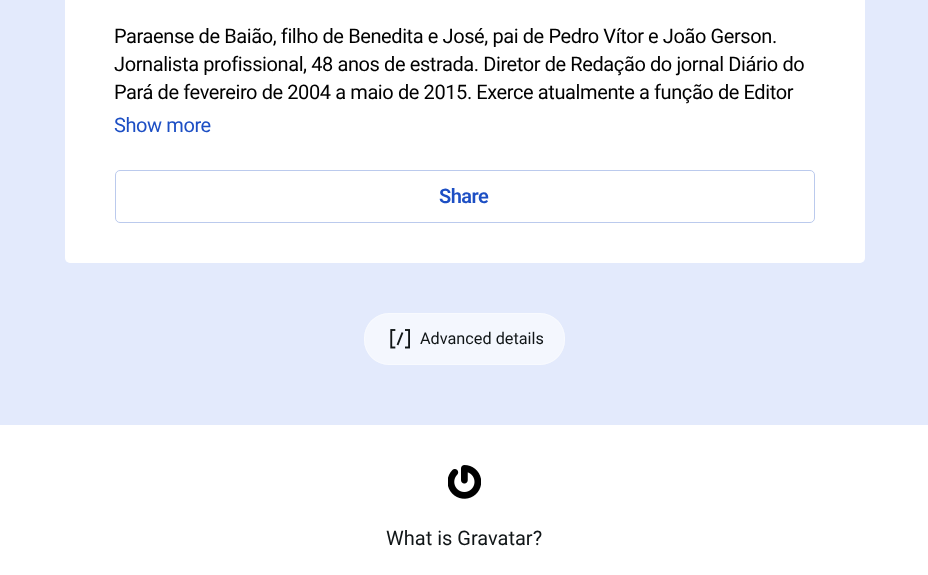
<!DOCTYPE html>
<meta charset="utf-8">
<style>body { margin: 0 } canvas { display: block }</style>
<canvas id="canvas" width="928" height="575"></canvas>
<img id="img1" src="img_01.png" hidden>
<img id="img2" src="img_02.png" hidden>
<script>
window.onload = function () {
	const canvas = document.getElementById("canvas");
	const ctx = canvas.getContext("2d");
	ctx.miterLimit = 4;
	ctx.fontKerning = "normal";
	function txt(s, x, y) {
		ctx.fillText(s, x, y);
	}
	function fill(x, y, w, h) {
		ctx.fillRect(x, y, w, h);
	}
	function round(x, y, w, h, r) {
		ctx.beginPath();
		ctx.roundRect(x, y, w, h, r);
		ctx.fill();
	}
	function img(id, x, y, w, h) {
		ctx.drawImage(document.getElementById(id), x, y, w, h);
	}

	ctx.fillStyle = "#FFFFFF";
	fill(0, 0, 928, 575);
	ctx.fillStyle = "#E3EAFC";
	fill(0, 0, 928, 425);
	ctx.fillStyle = "#FFFFFF";
	round(65, -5, 800, 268, 5);
	ctx.beginPath();
	ctx.roundRect(115.5, 170.5, 699, 52, 4.5);
	ctx.strokeStyle = "#BBCAED";
	ctx.stroke();
	ctx.fillStyle = "#F4F7FE";
	round(364, 313, 201, 52, 25);
	ctx.beginPath();
	ctx.roundRect(364.5, 313.5, 200, 51, 24.5);
	ctx.strokeStyle = "rgba(255, 255, 255, 0.4)";
	ctx.stroke();
	img("img1", 390, 329, 20, 20);
	img("img2", 448, 465, 33, 34);
	ctx.letterSpacing = "-0.4px";
	ctx.font = "20px Roboto";
	ctx.fillStyle = "#000000";
	txt("Paraense de Baião, filho de Benedita e José, pai de Pedro Vítor e João Gerson.", 114, 43);
	txt("Jornalista profissional, 48 anos de estrada. Diretor de Redação do jornal Diário do", 114, 71);
	txt("Pará de fevereiro de 2004 a maio de 2015. Exerce atualmente a função de Editor", 114, 99);
	ctx.fillStyle = "#1D4FC4";
	txt("Show more", 114, 132);
	ctx.letterSpacing = "-0.5px";
	ctx.font = "600 20px Roboto";
	txt("Share", 439, 203);
	ctx.letterSpacing = "0px";
	ctx.font = "16.25px Roboto";
	ctx.fillStyle = "#101517";
	txt("Advanced details", 420, 344);
	ctx.font = "20px Roboto";
	txt("What is Gravatar?", 386, 545);
};
</script>
